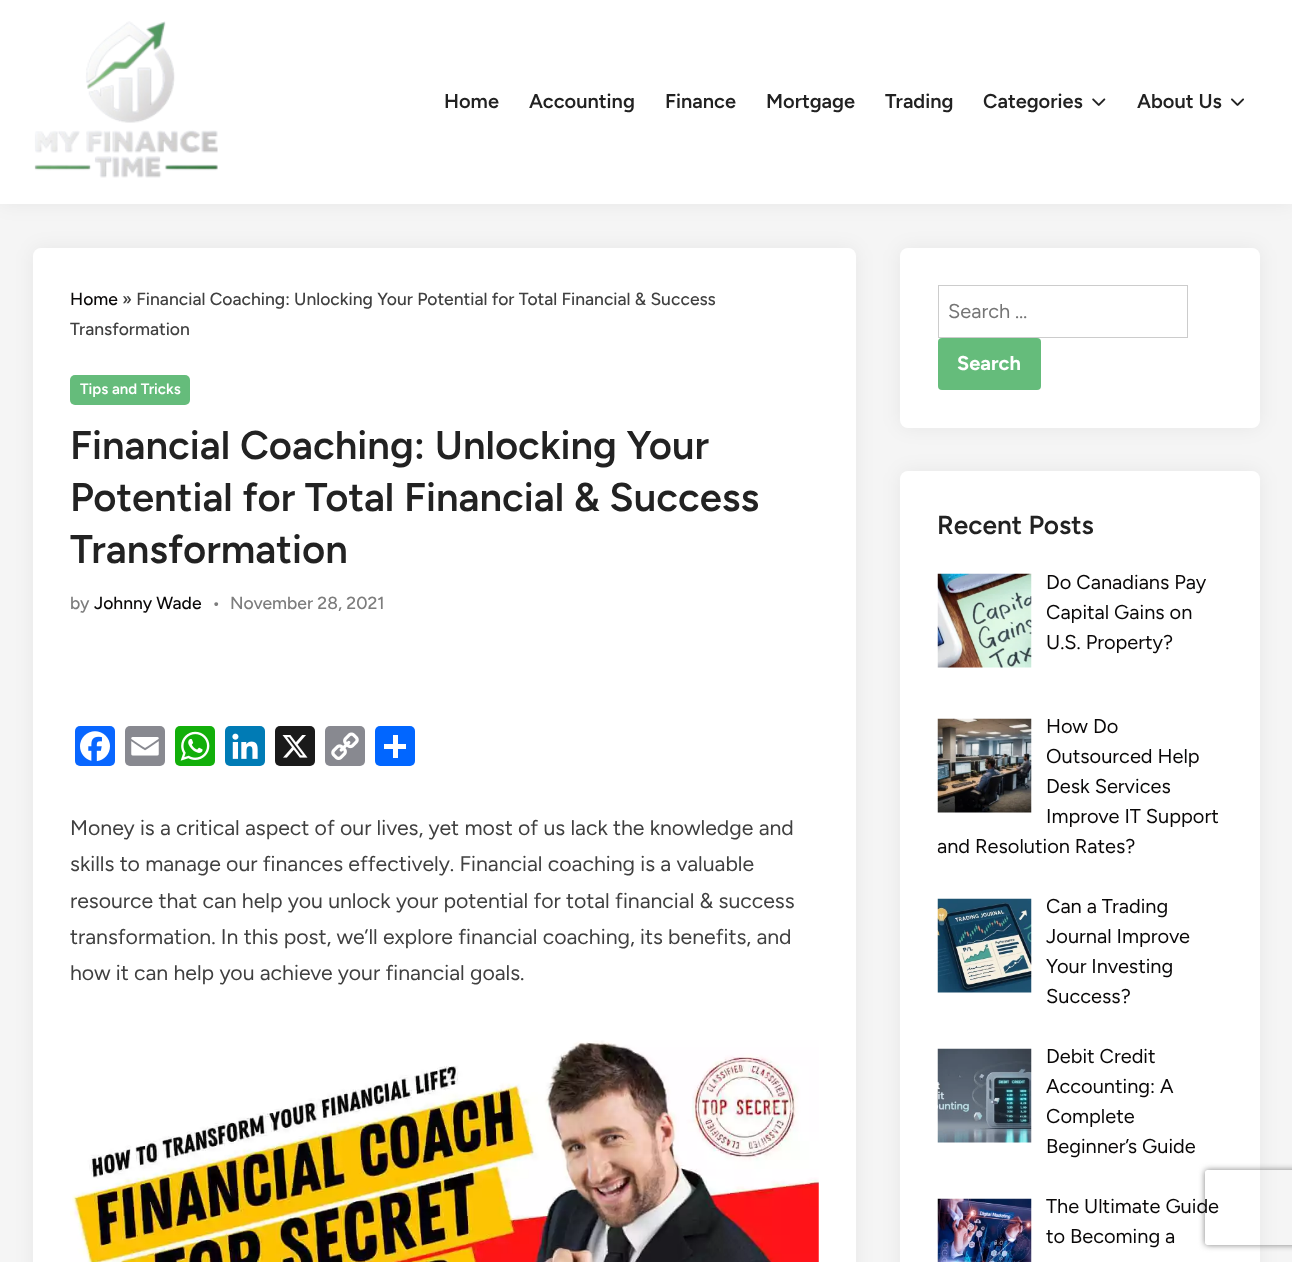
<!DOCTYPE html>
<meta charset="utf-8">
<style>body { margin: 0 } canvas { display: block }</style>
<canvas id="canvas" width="1292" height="1262"></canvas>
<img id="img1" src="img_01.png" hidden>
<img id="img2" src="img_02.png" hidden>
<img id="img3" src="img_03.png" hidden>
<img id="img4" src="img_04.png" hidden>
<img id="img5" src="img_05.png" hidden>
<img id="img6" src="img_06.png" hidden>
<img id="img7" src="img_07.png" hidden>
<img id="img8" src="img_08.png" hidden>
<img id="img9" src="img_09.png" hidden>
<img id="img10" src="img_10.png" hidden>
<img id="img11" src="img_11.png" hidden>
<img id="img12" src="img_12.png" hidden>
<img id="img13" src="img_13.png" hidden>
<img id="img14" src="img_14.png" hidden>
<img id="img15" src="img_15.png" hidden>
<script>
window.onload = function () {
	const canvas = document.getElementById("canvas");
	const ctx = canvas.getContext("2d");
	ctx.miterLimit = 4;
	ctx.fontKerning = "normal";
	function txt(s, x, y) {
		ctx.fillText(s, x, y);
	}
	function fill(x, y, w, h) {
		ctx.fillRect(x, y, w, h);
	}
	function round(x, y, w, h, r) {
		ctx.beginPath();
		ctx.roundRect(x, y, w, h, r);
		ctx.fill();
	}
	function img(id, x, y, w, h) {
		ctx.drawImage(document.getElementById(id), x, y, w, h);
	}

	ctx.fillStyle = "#F5F5F5";
	fill(0, 0, 1292, 1262);
	ctx.fillStyle = "rgba(0, 0, 0, 0.06)";
	ctx.filter = "blur(9.5px)";
	ctx.beginPath();
	ctx.rect(0, 0, 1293, 204);
	ctx.fill();
	ctx.filter = "none";
	ctx.fillStyle = "#FFFFFF";
	fill(0, 0, 1292, 204);
	img("img1", 34, 21, 184, 157);
	img("img2", 1092, 98, 14, 8);
	img("img3", 1231, 98, 13, 8);
	ctx.fillStyle = "rgba(0, 0, 0, 0.06)";
	ctx.filter = "blur(9.5px)";
	ctx.beginPath();
	ctx.roundRect(33, 248, 823, 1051, 8);
	ctx.fill();
	ctx.filter = "none";
	ctx.fillStyle = "#FFFFFF";
	round(33, 248, 823, 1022, 8);
	ctx.fillStyle = "#65BC7B";
	round(70, 375, 120, 30, 5);
	ctx.fillStyle = "#0866FF";
	round(75, 726, 40, 40, 5);
	img("img4", 80, 731, 30, 31);
	ctx.fillStyle = "#888990";
	round(125, 726, 40, 40, 5);
	img("img5", 131, 737, 28, 19);
	ctx.fillStyle = "#12AF0A";
	round(175, 726, 40, 40, 5);
	img("img6", 180, 731, 30, 30);
	ctx.fillStyle = "#007BB5";
	round(225, 726, 40, 40, 5);
	img("img7", 232, 733, 26, 26);
	ctx.fillStyle = "#1A1A1A";
	round(275, 726, 40, 40, 5);
	img("img8", 282, 735, 26, 23);
	ctx.fillStyle = "#888990";
	round(325, 726, 40, 40, 5);
	img("img9", 331, 732, 28, 28);
	ctx.fillStyle = "#0166FF";
	round(375, 726, 40, 40, 5);
	ctx.fillStyle = "#FFFFFF";
	fill(393, 735, 5, 23);
	fill(384, 744, 22, 5);
	img("img10", 70, 1040, 749, 222);
	ctx.fillStyle = "rgba(0, 0, 0, 0.06)";
	ctx.filter = "blur(9.5px)";
	ctx.beginPath();
	ctx.roundRect(900, 248, 360, 180, 8);
	ctx.fill();
	ctx.filter = "none";
	ctx.fillStyle = "#FFFFFF";
	round(900, 248, 360, 180, 8);
	ctx.strokeStyle = "#CCCCCC";
	ctx.strokeRect(938.5, 285.5, 249, 52);
	ctx.fillStyle = "#65BC7B";
	round(938, 338, 103, 52, 4);
	ctx.fillStyle = "rgba(0, 0, 0, 0.06)";
	ctx.filter = "blur(9.5px)";
	ctx.beginPath();
	ctx.roundRect(900, 471, 360, 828, 8);
	ctx.fill();
	ctx.filter = "none";
	ctx.fillStyle = "#FFFFFF";
	round(900, 471, 360, 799, 8);
	img("img11", 937, 573, 95, 95);
	img("img12", 937, 718, 95, 95);
	img("img13", 937, 898, 95, 95);
	img("img14", 937, 1048, 95, 95);
	img("img15", 937, 1198, 95, 64);
	ctx.save();
	ctx.beginPath();
	ctx.moveTo(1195, 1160);
	ctx.lineTo(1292, 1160);
	ctx.lineTo(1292, 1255);
	ctx.lineTo(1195, 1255);
	ctx.closePath();
	ctx.moveTo(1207.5, 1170);
	ctx.lineTo(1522.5, 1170);
	ctx.bezierCurveTo(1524, 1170, 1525, 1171, 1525, 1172.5);
	ctx.lineTo(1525, 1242.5);
	ctx.bezierCurveTo(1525, 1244, 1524, 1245, 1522.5, 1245);
	ctx.lineTo(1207.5, 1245);
	ctx.bezierCurveTo(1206, 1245, 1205, 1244, 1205, 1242.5);
	ctx.lineTo(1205, 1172.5);
	ctx.bezierCurveTo(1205, 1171, 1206, 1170, 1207.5, 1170);
	ctx.closePath();
	ctx.clip("evenodd");
	ctx.fillStyle = "#808080";
	ctx.filter = "blur(3px)";
	ctx.beginPath();
	ctx.roundRect(1205, 1170, 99, 75, 2.5);
	ctx.fill();
	ctx.filter = "none";
	ctx.restore();
	ctx.font = "600 20px Figtree";
	ctx.fillStyle = "#222222";
	txt("Home", 444, 108);
	txt("Accounting", 529, 108);
	txt("Finance", 665, 108);
	txt("Mortgage", 766, 108);
	txt("Trading", 885, 108);
	txt("Categories", 983, 108);
	txt("About Us", 1137, 108);
	ctx.font = "500 17.5px Figtree";
	ctx.fillStyle = "#0A0808";
	txt("Home", 70, 305);
	ctx.fillStyle = "#404040";
	txt("» Financial Coaching: Unlocking Your Potential for Total Financial & Success", 122, 305);
	txt("Transformation", 70, 335);
	ctx.font = "600 15px Figtree";
	ctx.fillStyle = "#FFFFFF";
	txt("Tips and Tricks", 80, 394);
	ctx.font = "600 40px Figtree";
	ctx.fillStyle = "#222222";
	txt("Financial Coaching: Unlocking Your", 70, 459);
	txt("Potential for Total Financial & Success", 70, 511);
	txt("Transformation", 70, 563);
	ctx.font = "500 17.5px Figtree";
	ctx.fillStyle = "#7D7D7D";
	txt("by", 70, 609);
	ctx.fillStyle = "#0A0808";
	txt("Johnny Wade", 94, 609);
	ctx.fillStyle = "#7D7D7D";
	txt("•", 212, 609);
	txt("November 28, 2021", 230, 609);
	ctx.font = "21.25px Figtree";
	ctx.fillStyle = "#404040";
	txt("Money is a critical aspect of our lives, yet most of us lack the knowledge and", 70, 835);
	txt("skills to manage our finances effectively. Financial coaching is a valuable", 70, 871);
	txt("resource that can help you unlock your potential for total financial & success", 70, 908);
	txt("transformation. In this post, we’ll explore financial coaching, its benefits, and", 70, 944);
	txt("how it can help you achieve your financial goals.", 70, 980);
	ctx.font = "20px Figtree";
	ctx.fillStyle = "#757575";
	txt("Search …", 948, 318);
	ctx.font = "bold 20px Figtree";
	ctx.fillStyle = "#FFFFFF";
	txt("Search", 957, 370);
	ctx.font = "600 26.25px Figtree";
	ctx.fillStyle = "#222222";
	txt("Recent Posts", 937, 534);
	ctx.font = "20px Figtree";
	ctx.fillStyle = "#0A0808";
	txt("Do Canadians Pay", 1046, 589);
	txt("Capital Gains on", 1046, 619);
	txt("U.S. Property?", 1046, 649);
	txt("How Do", 1046, 733);
	txt("Outsourced Help", 1046, 763);
	txt("Desk Services", 1046, 793);
	txt("Improve IT Support", 1046, 823);
	txt("and Resolution Rates?", 937, 853);
	txt("Can a Trading", 1046, 913);
	txt("Journal Improve", 1046, 943);
	txt("Your Investing", 1046, 973);
	txt("Success?", 1046, 1003);
	txt("Debit Credit", 1046, 1063);
	txt("Accounting: A", 1046, 1093);
	txt("Complete", 1046, 1123);
	txt("Beginner’s Guide", 1046, 1153);
	txt("The Ultimate Guide", 1046, 1213);
	txt("to Becoming a", 1046, 1243);
};
</script>
